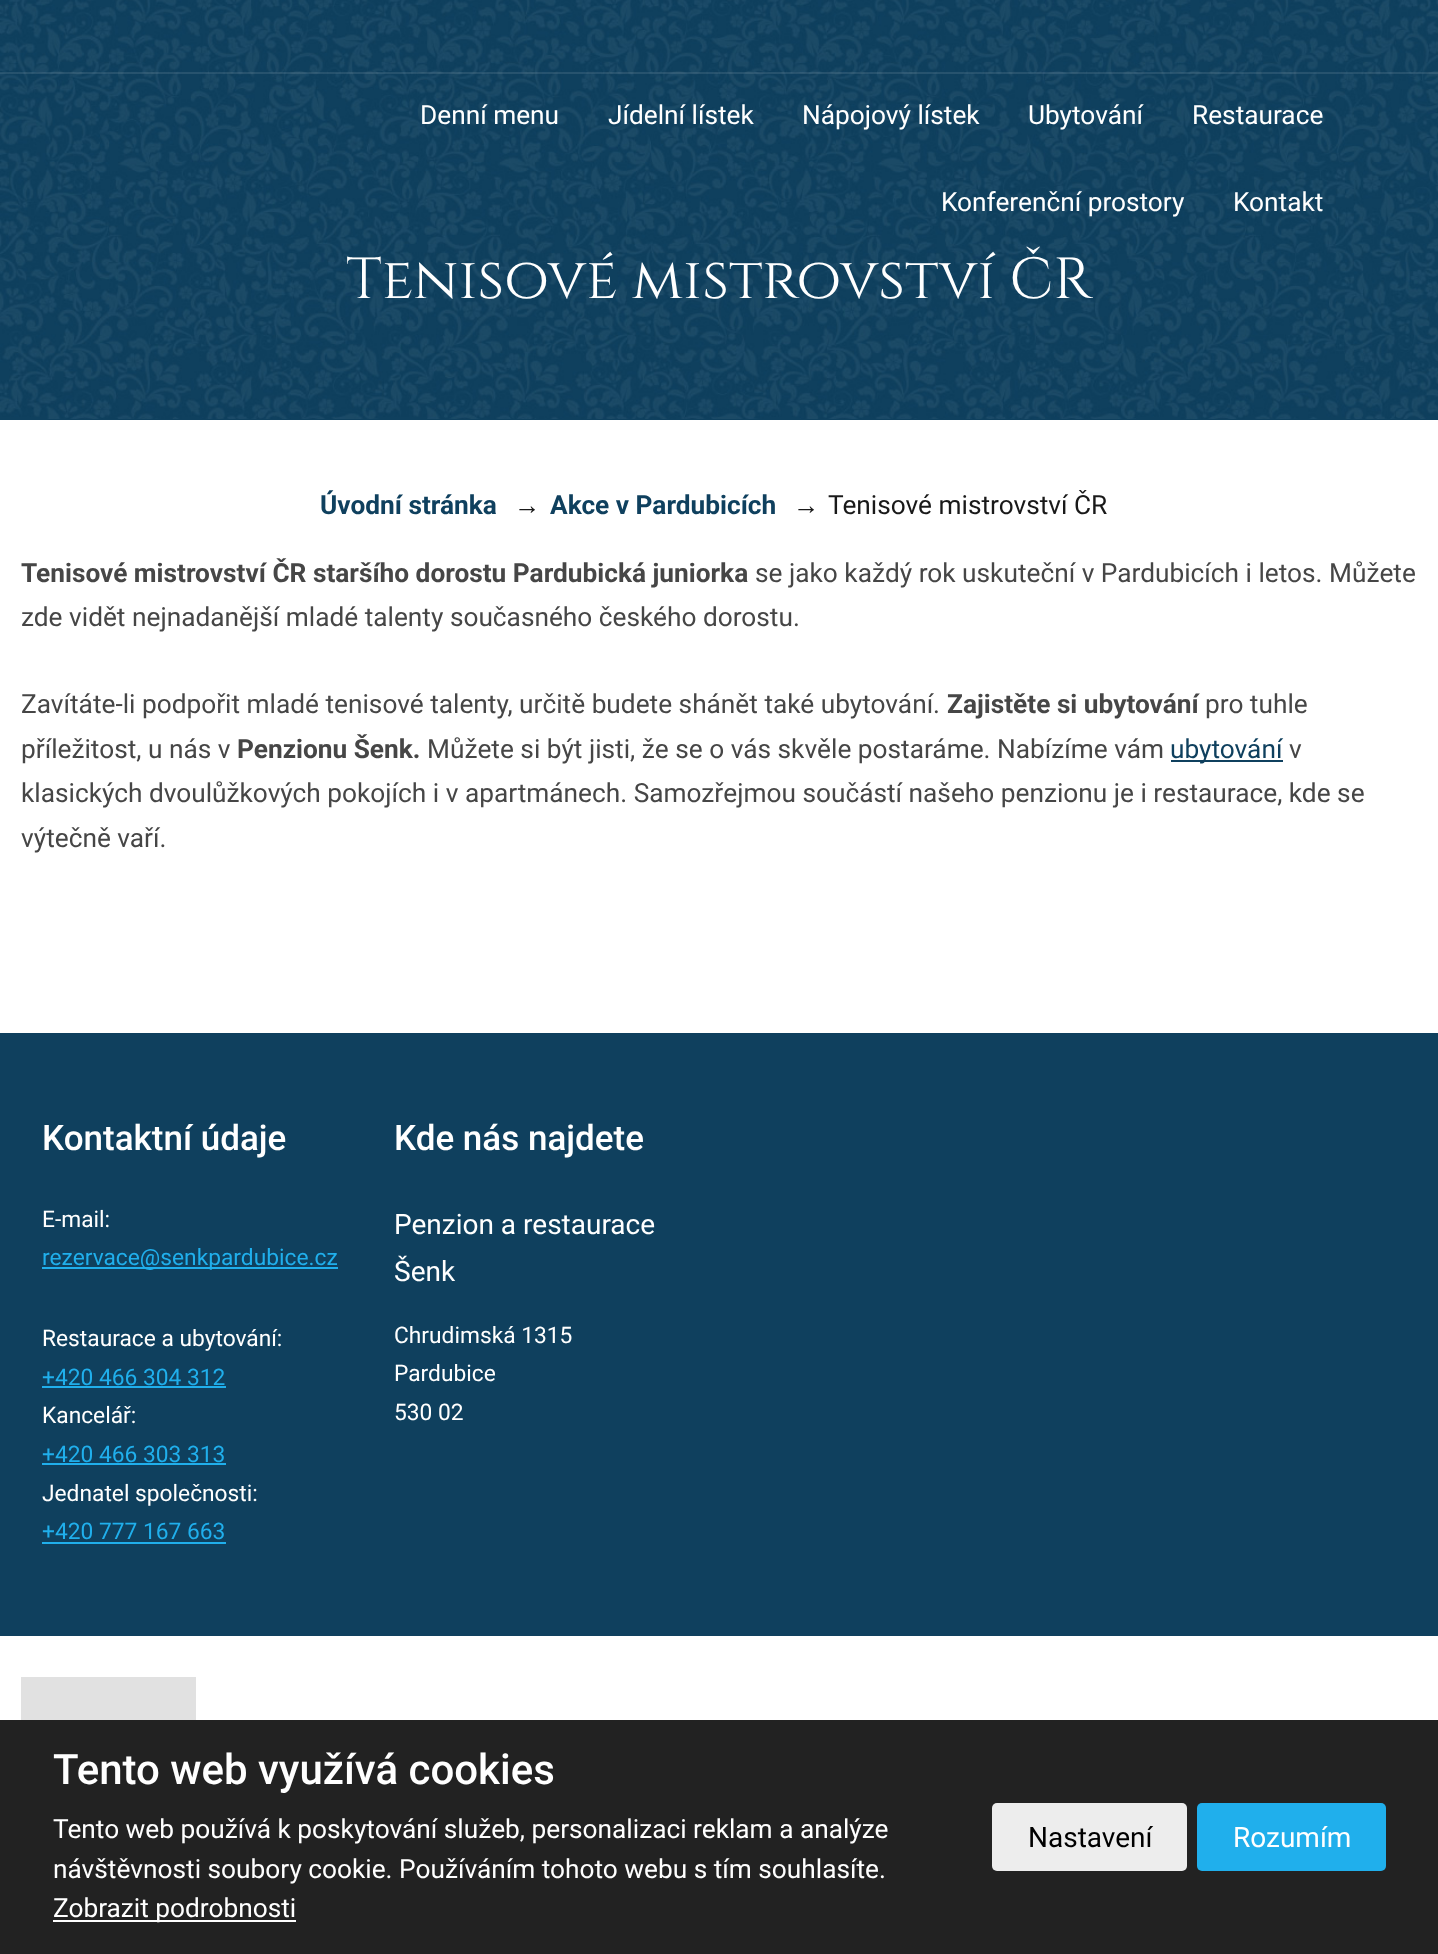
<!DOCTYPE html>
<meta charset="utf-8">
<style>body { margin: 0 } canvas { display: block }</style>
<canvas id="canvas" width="1438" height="1954"></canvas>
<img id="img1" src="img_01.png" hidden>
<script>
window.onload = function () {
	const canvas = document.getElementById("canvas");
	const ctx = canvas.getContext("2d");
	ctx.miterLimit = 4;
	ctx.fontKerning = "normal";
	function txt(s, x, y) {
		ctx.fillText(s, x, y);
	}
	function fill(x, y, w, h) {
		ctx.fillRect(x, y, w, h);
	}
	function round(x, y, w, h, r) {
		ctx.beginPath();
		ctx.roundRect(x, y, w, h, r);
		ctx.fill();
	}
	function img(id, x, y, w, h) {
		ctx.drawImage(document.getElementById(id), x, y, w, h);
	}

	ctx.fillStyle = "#FFFFFF";
	fill(0, 0, 1438, 1954);
	ctx.fillStyle = "#0F405E";
	fill(0, 419, 1438, 1);
	img("img1", 0, 0, 1438, 419);
	ctx.fillStyle = "rgba(255, 255, 255, 0.1)";
	fill(0, 72, 1438, 2);
	ctx.fillStyle = "#0F405E";
	fill(1171, 760, 112, 2);
	fill(0, 1033, 1438, 603);
	ctx.fillStyle = "#20AFEC";
	fill(42, 1267, 296, 2);
	fill(42, 1386, 184, 2);
	fill(42, 1463, 184, 2);
	fill(42, 1542, 184, 2);
	ctx.fillStyle = "#E1E1E1";
	fill(21, 1677, 175, 43);
	ctx.fillStyle = "#222222";
	fill(0, 1720, 1438, 234);
	ctx.fillStyle = "#FFFFFF";
	fill(53, 1920, 243, 2);
	ctx.fillStyle = "#EDEDED";
	round(992, 1803, 195, 68, 5);
	ctx.fillStyle = "#20AFEC";
	round(1197, 1803, 189, 68, 5);
	ctx.font = "26.25px Roboto";
	ctx.fillStyle = "#FFFFFF";
	txt("Denní menu", 420, 124);
	txt("Jídelní lístek", 608, 124);
	txt("Nápojový lístek", 802, 124);
	txt("Ubytování", 1028, 124);
	txt("Restaurace", 1192, 124);
	txt("Konferenční prostory", 941, 211);
	txt("Kontakt", 1233, 211);
	ctx.font = "57.75px Cinzel";
	txt("Tenisové mistrovství ČR", 346, 298);
	ctx.font = "bold 26.25px Roboto";
	ctx.fillStyle = "#0F405E";
	txt("Úvodní stránka", 320, 514);
	ctx.font = "bold 26.25px Liberation Sans";
	ctx.fillStyle = "#191919";
	txt("→", 514, 514);
	ctx.font = "bold 26.25px Roboto";
	ctx.fillStyle = "#0F405E";
	txt("Akce v Pardubicích", 550, 514);
	ctx.font = "bold 26.25px Liberation Sans";
	ctx.fillStyle = "#191919";
	txt("→", 793, 514);
	ctx.font = "26.25px Roboto";
	txt("Tenisové mistrovství ČR", 828, 514);
	ctx.font = "bold 26.25px Roboto";
	ctx.fillStyle = "#464646";
	txt("Tenisové mistrovství ČR staršího dorostu Pardubická juniorka", 21, 582);
	ctx.font = "26.25px Roboto";
	txt("se jako každý rok uskuteční v Pardubicích i letos. Můžete", 755, 582);
	txt("zde vidět nejnadanější mladé talenty současného českého dorostu.", 21, 626);
	txt("Zavítáte-li podpořit mladé tenisové talenty, určitě budete shánět také ubytování.", 21, 713);
	ctx.font = "bold 26.25px Roboto";
	txt("Zajistěte si ubytování", 947, 713);
	ctx.font = "26.25px Roboto";
	txt("pro tuhle", 1205, 713);
	txt("příležitost, u nás v", 21, 758);
	ctx.font = "bold 26.25px Roboto";
	txt("Penzionu Šenk.", 237, 758);
	ctx.font = "26.25px Roboto";
	txt("Můžete si být jisti, že se o vás skvěle postaráme. Nabízíme vám", 427, 758);
	ctx.fillStyle = "#0F405E";
	txt("ubytování", 1170, 758);
	ctx.fillStyle = "#464646";
	txt("v", 1289, 758);
	txt("klasických dvoulůžkových pokojích i v apartmánech. Samozřejmou součástí našeho penzionu je i restaurace, kde se", 21, 802);
	txt("výtečně vaří.", 21, 847);
	ctx.font = "500 35px Roboto";
	ctx.fillStyle = "#FFFFFF";
	txt("Kontaktní údaje", 42, 1150);
	ctx.font = "22.75px Roboto";
	txt("E-mail:", 42, 1227);
	ctx.fillStyle = "#20AFEC";
	txt("rezervace@senkpardubice.cz", 42, 1265);
	ctx.fillStyle = "#FFFFFF";
	txt("Restaurace a ubytování:", 42, 1346);
	ctx.fillStyle = "#20AFEC";
	txt("+420 466 304 312", 42, 1385);
	ctx.fillStyle = "#FFFFFF";
	txt("Kancelář:", 42, 1423);
	ctx.fillStyle = "#20AFEC";
	txt("+420 466 303 313", 42, 1462);
	ctx.fillStyle = "#FFFFFF";
	txt("Jednatel společnosti:", 42, 1501);
	ctx.fillStyle = "#20AFEC";
	txt("+420 777 167 663", 42, 1539);
	ctx.font = "500 35px Roboto";
	ctx.fillStyle = "#FFFFFF";
	txt("Kde nás najdete", 394, 1150);
	ctx.font = "28px Roboto";
	txt("Penzion a restaurace", 394, 1234);
	txt("Šenk", 394, 1281);
	ctx.font = "22.75px Roboto";
	txt("Chrudimská 1315", 394, 1343);
	txt("Pardubice", 394, 1381);
	txt("530 02", 394, 1420);
	ctx.font = "500 42px Roboto";
	txt("Tento web využívá cookies", 53, 1784);
	ctx.font = "26.25px Roboto";
	txt("Tento web používá k poskytování služeb, personalizaci reklam a analýze", 53, 1838);
	txt("návštěvnosti soubory cookie. Používáním tohoto webu s tím souhlasíte.", 53, 1878);
	txt("Zobrazit podrobnosti", 53, 1917);
	ctx.font = "28px Roboto";
	ctx.fillStyle = "#000000";
	txt("Nastavení", 1028, 1847);
	ctx.fillStyle = "#FFFFFF";
	txt("Rozumím", 1233, 1847);
};
</script>
